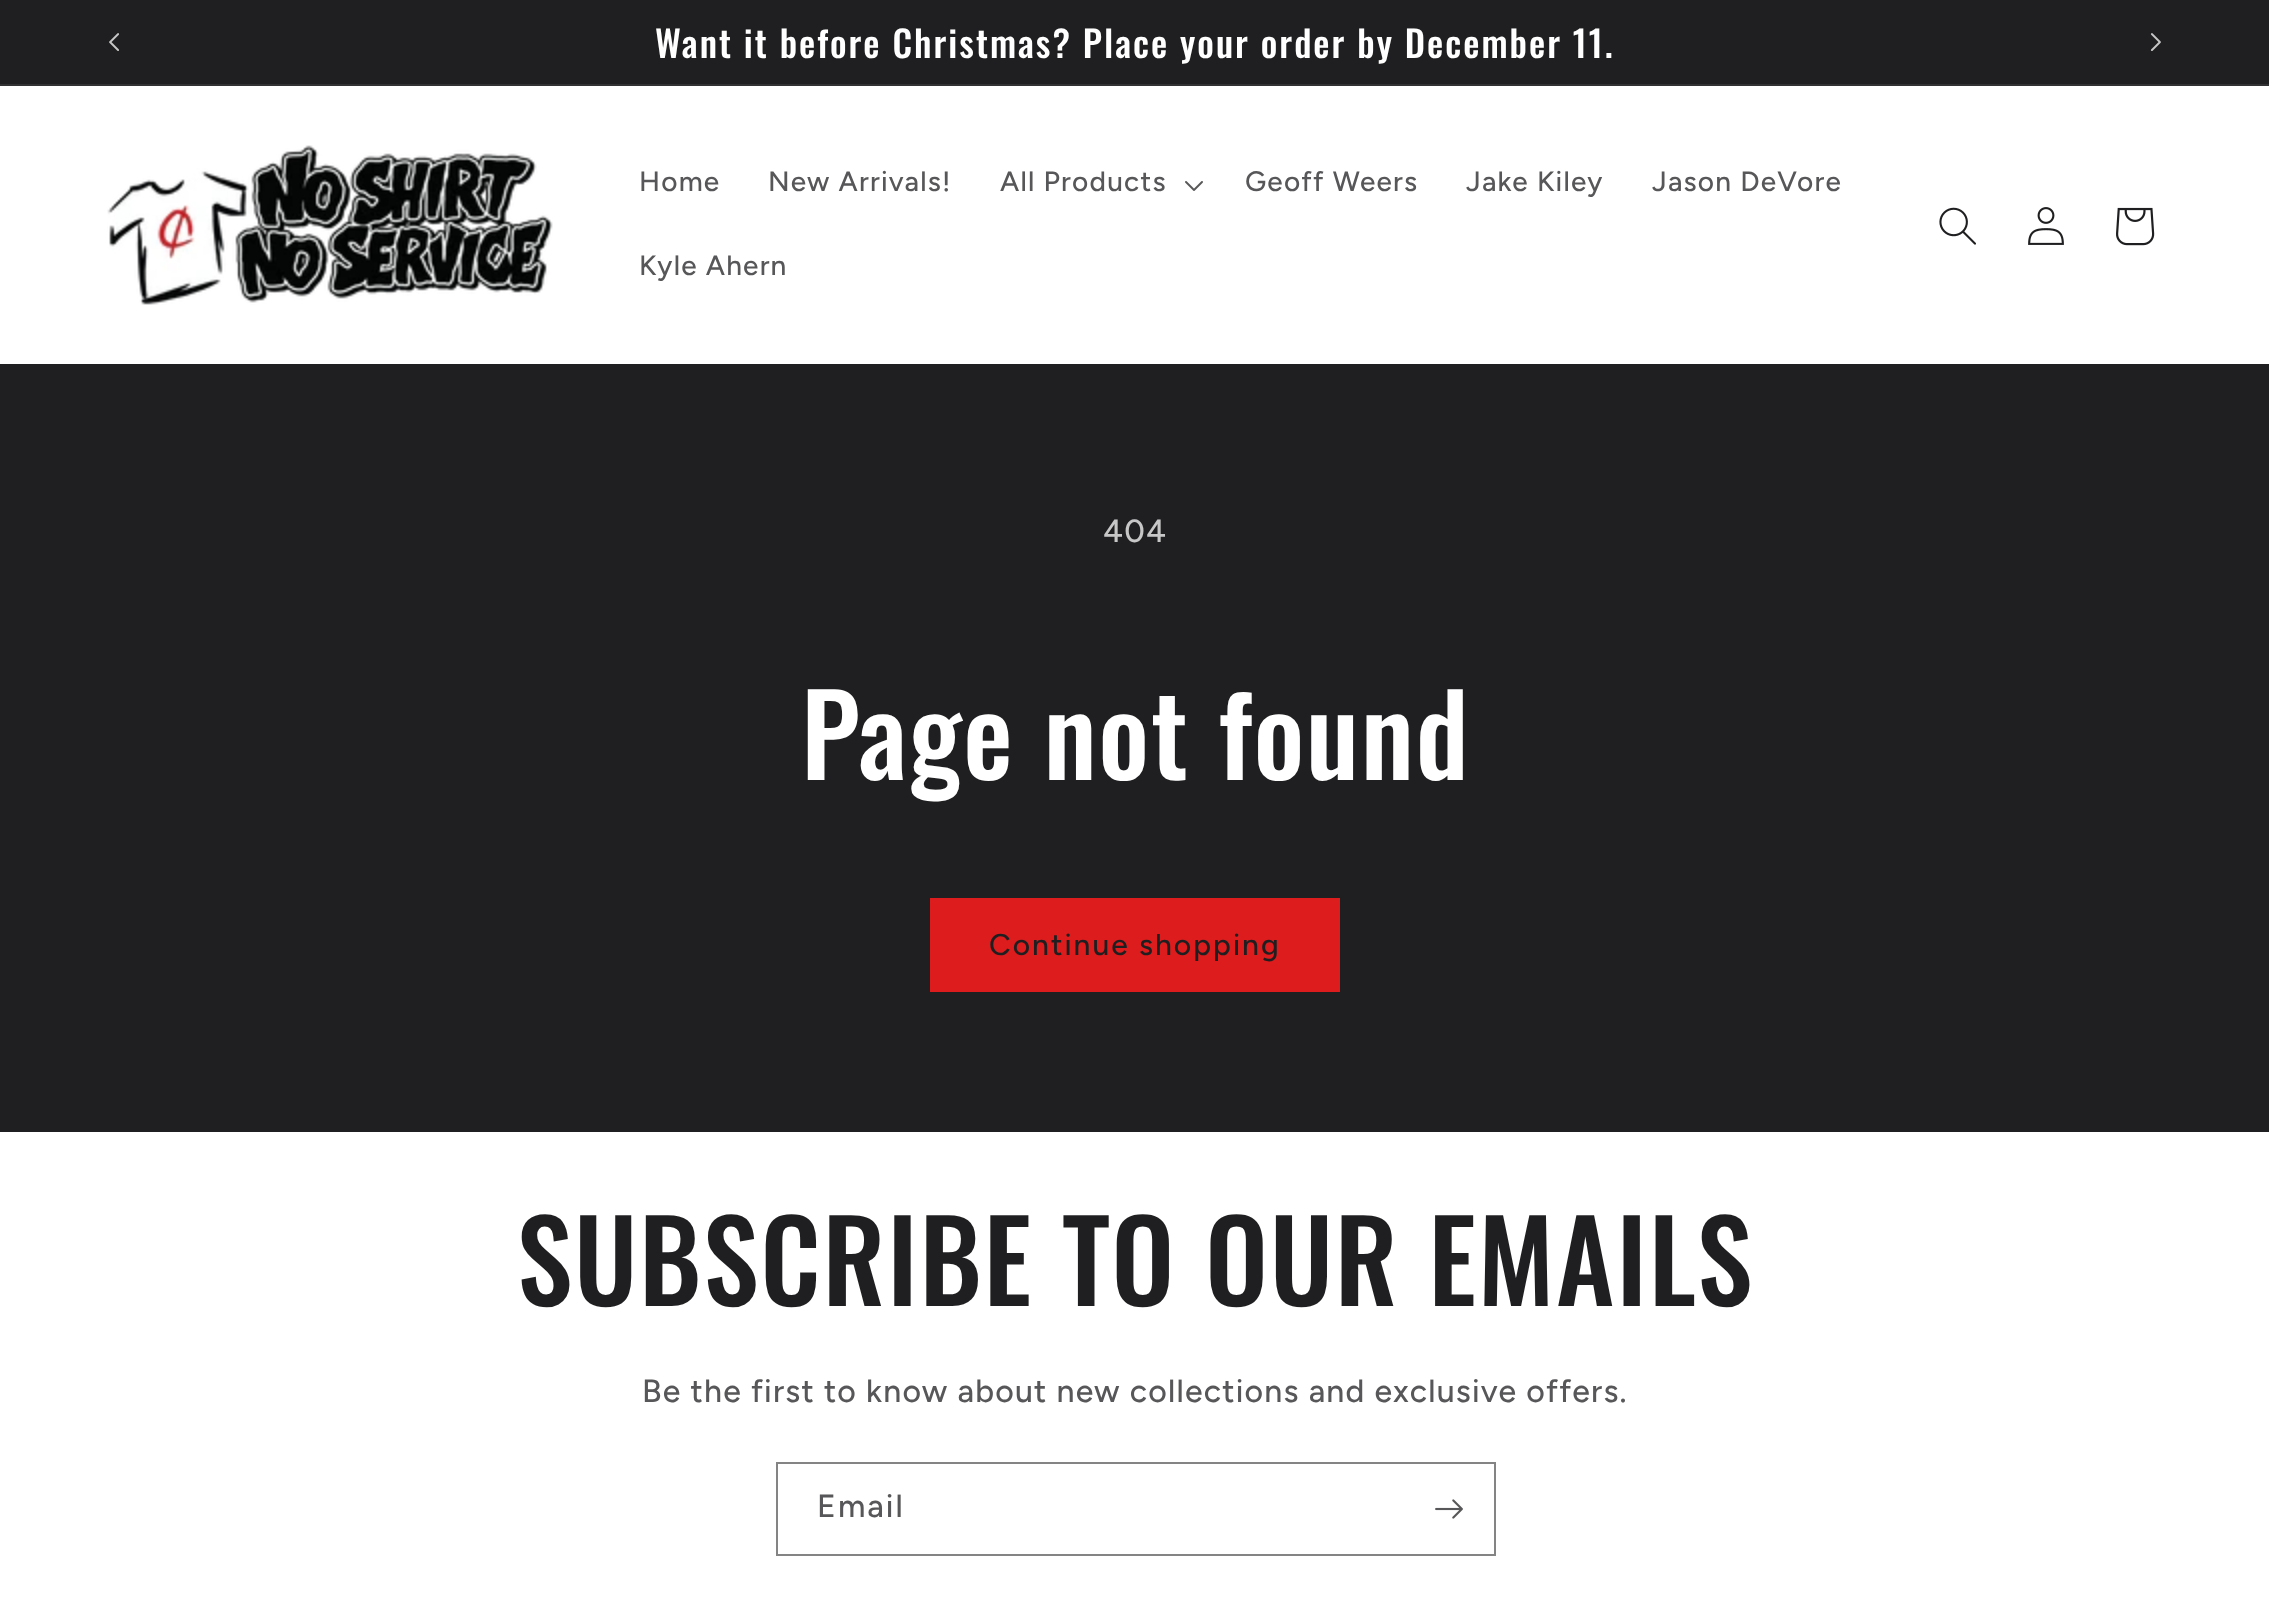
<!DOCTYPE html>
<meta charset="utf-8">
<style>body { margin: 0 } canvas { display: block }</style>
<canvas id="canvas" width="2269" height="1604"></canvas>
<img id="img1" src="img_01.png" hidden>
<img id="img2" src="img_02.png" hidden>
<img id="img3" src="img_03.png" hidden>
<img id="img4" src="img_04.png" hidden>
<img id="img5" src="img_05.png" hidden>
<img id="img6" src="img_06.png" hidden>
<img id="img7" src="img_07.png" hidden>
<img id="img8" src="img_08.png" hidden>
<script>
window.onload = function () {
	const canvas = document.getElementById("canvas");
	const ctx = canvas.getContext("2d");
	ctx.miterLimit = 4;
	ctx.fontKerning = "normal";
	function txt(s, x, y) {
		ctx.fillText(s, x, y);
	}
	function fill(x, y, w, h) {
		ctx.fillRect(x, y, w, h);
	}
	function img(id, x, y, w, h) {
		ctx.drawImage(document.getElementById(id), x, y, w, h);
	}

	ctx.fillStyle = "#1F1F21";
	fill(0, 0, 2269, 1604);
	ctx.fillStyle = "#313133";
	fill(0, 84, 2269, 2);
	img("img1", 109, 33, 10, 18);
	img("img2", 2150, 33, 11, 18);
	ctx.fillStyle = "#FFFFFF";
	fill(0, 86, 2269, 278);
	img("img3", 107, 145, 446, 160);
	img("img4", 1185, 181, 18, 10);
	img("img5", 1939, 207, 37, 38);
	img("img6", 2028, 207, 36, 38);
	img("img7", 2116, 207, 39, 39);
	ctx.fillStyle = "#DD1D1D";
	fill(930, 898, 410, 94);
	ctx.fillStyle = "#FFFFFF";
	fill(0, 1132, 2269, 472);
	ctx.strokeStyle = "#848485";
	ctx.lineWidth = 2;
	ctx.strokeRect(777, 1463, 718, 92);
	img("img8", 1435, 1499, 28, 20);
	ctx.letterSpacing = "2px";
	ctx.font = "500 36.4px Oswald";
	txt("Want it before Christmas? Place your order by December 11.", 655, 58);
	ctx.letterSpacing = "1.2px";
	ctx.font = "500 28px Figtree";
	ctx.fillStyle = "#575759";
	txt("Home", 639, 191);
	txt("New Arrivals!", 768, 191);
	txt("All Products", 1000, 191);
	txt("Geoff Weers", 1245, 191);
	txt("Jake Kiley", 1466, 191);
	txt("Jason DeVore", 1652, 191);
	txt("Kyle Ahern", 639, 275);
	ctx.font = "500 32px Figtree";
	ctx.fillStyle = "#C7C7C8";
	txt("404", 1103, 542);
	ctx.letterSpacing = "1.7px";
	ctx.font = "500 112px Oswald";
	ctx.fillStyle = "#FFFFFF";
	txt("Page not found", 801, 780);
	ctx.letterSpacing = "2px";
	ctx.font = "500 30px Figtree";
	ctx.fillStyle = "#1F1F21";
	txt("Continue shopping", 989, 955);
	ctx.letterSpacing = "1.7px";
	ctx.font = "500 112px Oswald";
	txt("SUBSCRIBE TO OUR EMAILS", 517, 1306);
	ctx.letterSpacing = "1.2px";
	ctx.font = "500 32px Figtree";
	ctx.fillStyle = "#575759";
	txt("Be the first to know about new collections and exclusive offers.", 642, 1402);
	ctx.letterSpacing = "2px";
	txt("Email", 817, 1517);
};
</script>
